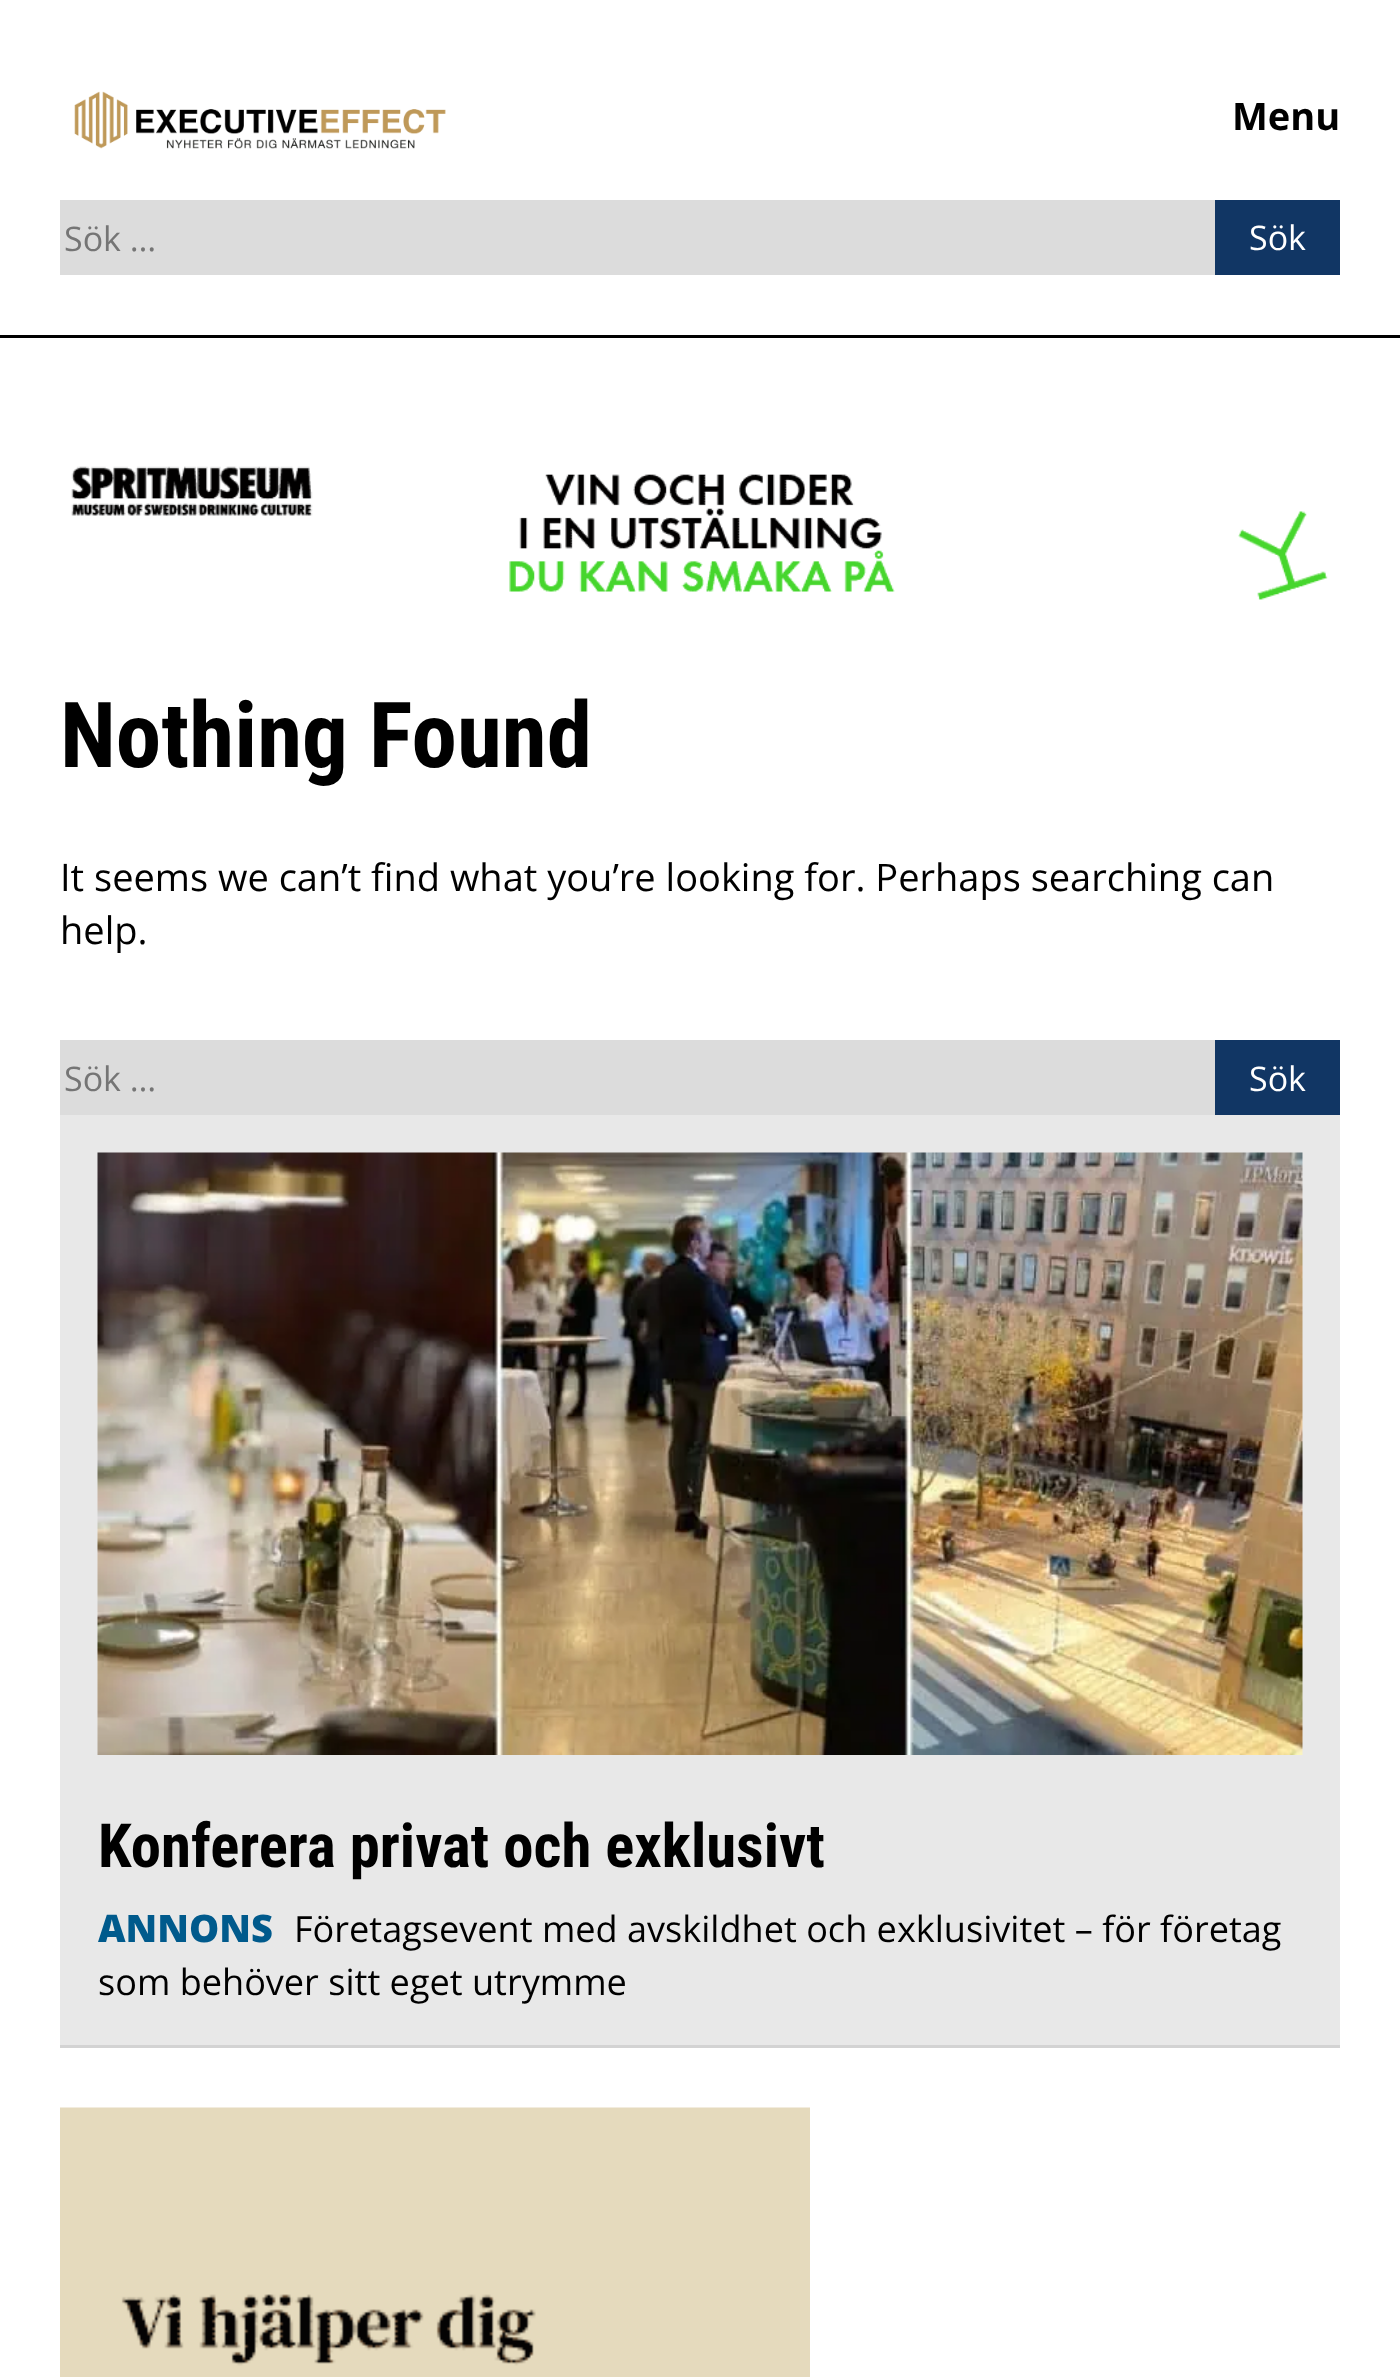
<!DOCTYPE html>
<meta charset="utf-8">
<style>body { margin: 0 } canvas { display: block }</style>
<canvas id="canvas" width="1400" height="2377"></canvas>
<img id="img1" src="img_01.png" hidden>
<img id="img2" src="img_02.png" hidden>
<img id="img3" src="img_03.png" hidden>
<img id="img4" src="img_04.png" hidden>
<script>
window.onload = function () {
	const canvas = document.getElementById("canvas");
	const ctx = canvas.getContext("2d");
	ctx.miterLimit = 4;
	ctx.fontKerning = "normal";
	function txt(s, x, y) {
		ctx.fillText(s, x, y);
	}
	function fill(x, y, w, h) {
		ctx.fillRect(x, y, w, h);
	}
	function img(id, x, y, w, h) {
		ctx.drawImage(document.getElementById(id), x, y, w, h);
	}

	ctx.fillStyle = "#FFFFFF";
	fill(0, 0, 1400, 2377);
	ctx.fillStyle = "#000000";
	fill(0, 335, 1400, 3);
	img("img1", 74, 91, 372, 58);
	ctx.fillStyle = "#DCDCDC";
	fill(60, 200, 1155, 75);
	ctx.fillStyle = "#113664";
	fill(1215, 200, 125, 75);
	img("img2", 71, 466, 1257, 134);
	ctx.fillStyle = "#DCDCDC";
	fill(60, 1040, 1155, 75);
	ctx.fillStyle = "#113664";
	fill(1215, 1040, 125, 75);
	ctx.fillStyle = "#E8E8E8";
	fill(60, 1115, 1280, 930);
	ctx.fillStyle = "#D3D3D3";
	fill(60, 2045, 1280, 3);
	img("img3", 97, 1152, 1206, 603);
	img("img4", 60, 2107, 750, 270);
	ctx.font = "bold 38px Open Sans";
	ctx.fillStyle = "#000000";
	txt("Menu", 1232, 130);
	ctx.font = "34px Open Sans";
	ctx.fillStyle = "#757575";
	txt("Sök …", 64, 251);
	ctx.fillStyle = "#FFFFFF";
	txt("Sök", 1249, 250);
	ctx.font = "bold 91.25px Roboto Condensed";
	ctx.fillStyle = "#000000";
	txt("Nothing Found", 60, 767);
	ctx.font = "38px Open Sans";
	txt("It seems we can’t find what you’re looking for. Perhaps searching can", 60, 891);
	txt("help.", 60, 944);
	ctx.font = "34px Open Sans";
	ctx.fillStyle = "#757575";
	txt("Sök …", 64, 1091);
	ctx.fillStyle = "#FFFFFF";
	txt("Sök", 1249, 1091);
	ctx.font = "bold 60.75px Roboto Condensed";
	ctx.fillStyle = "#000000";
	txt("Konferera privat och exklusivt", 98, 1867);
	ctx.font = "800 38px Open Sans";
	ctx.fillStyle = "#005A8C";
	txt("ANNONS", 98, 1942);
	ctx.font = "36.1px Open Sans";
	ctx.fillStyle = "#000000";
	txt("Företagsevent med avskildhet och exklusivitet – för företag", 294, 1942);
	txt("som behöver sitt eget utrymme", 98, 1995);
};
</script>
